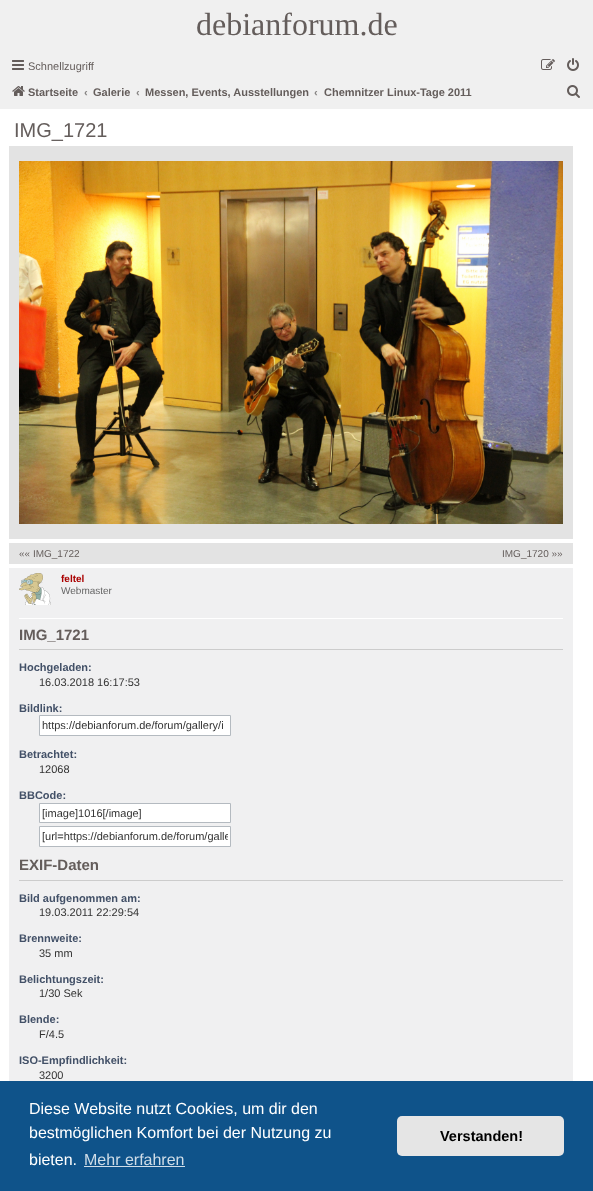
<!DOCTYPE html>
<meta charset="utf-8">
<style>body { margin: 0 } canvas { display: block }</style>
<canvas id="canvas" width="593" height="1191"></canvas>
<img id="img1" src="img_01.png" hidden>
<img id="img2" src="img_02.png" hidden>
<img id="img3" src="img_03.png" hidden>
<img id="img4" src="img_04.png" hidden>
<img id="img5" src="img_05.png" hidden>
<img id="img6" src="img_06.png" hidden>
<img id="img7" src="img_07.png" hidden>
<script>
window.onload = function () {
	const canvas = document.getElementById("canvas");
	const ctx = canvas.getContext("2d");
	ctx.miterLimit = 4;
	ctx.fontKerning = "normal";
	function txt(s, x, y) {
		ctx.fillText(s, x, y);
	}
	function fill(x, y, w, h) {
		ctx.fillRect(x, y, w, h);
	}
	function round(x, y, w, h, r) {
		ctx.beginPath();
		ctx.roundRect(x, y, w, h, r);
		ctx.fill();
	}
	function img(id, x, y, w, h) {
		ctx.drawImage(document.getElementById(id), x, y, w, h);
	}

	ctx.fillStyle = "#FFFFFF";
	fill(0, 0, 593, 1191);
	ctx.fillStyle = "#F0F0F0";
	fill(0, 0, 593, 109);
	img("img1", 12, 60, 12, 10);
	img("img2", 541, 59, 14, 11);
	img("img3", 567, 58, 12, 13);
	img("img4", 12, 86, 13, 10);
	img("img5", 567, 85, 13, 13);
	ctx.fillStyle = "#E3E3E3";
	fill(9, 146, 564, 393);
	img("img6", 19, 161, 544, 363);
	fill(9, 543, 564, 21);
	ctx.fillStyle = "#F0F0F1";
	fill(9, 568, 564, 513);
	ctx.fillStyle = "#FFFFFF";
	fill(19, 618, 544, 1);
	img("img7", 19, 573, 32, 32);
	ctx.fillStyle = "#CCCCCC";
	fill(19, 649, 544, 1);
	ctx.fillStyle = "#FFFFFF";
	ctx.beginPath();
	ctx.rect(39.5, 715.5, 191, 20);
	ctx.fill();
	ctx.strokeStyle = "#B4BAC0";
	ctx.stroke();
	ctx.beginPath();
	ctx.rect(39.5, 803.5, 191, 19);
	ctx.fill();
	ctx.stroke();
	ctx.beginPath();
	ctx.rect(39.5, 826.5, 191, 20);
	ctx.fill();
	ctx.stroke();
	ctx.fillStyle = "#CCCCCC";
	fill(19, 880, 544, 1);
	ctx.fillStyle = "#0F538A";
	fill(0, 1081, 593, 110);
	ctx.fillStyle = "#CFDDE8";
	fill(84, 1166, 101, 1);
	ctx.fillStyle = "#E5E5E5";
	round(397, 1116, 167, 40, 5);
	ctx.font = "32px Liberation Serif";
	ctx.fillStyle = "#645D5B";
	txt("debianforum.de", 196, 35);
	ctx.font = "11px Liberation Sans";
	txt("Schnellzugriff", 28, 70);
	ctx.font = "bold 11px Liberation Sans";
	txt("Startseite", 28, 96);
	ctx.fillStyle = "#848281";
	txt("‹", 84, 96);
	ctx.fillStyle = "#645D5B";
	txt("Galerie", 93, 96);
	ctx.fillStyle = "#848281";
	txt("‹", 136, 96);
	ctx.fillStyle = "#645D5B";
	txt("Messen, Events, Ausstellungen", 145, 96);
	ctx.fillStyle = "#848281";
	txt("‹", 314, 96);
	ctx.fillStyle = "#645D5B";
	txt("Chemnitzer Linux-Tage 2011", 324, 96);
	ctx.font = "20px Liberation Sans";
	txt("IMG_1721", 14, 137);
	ctx.font = "10px Liberation Sans";
	txt("«« IMG_1722", 19, 557);
	txt("IMG_1720 »»", 502, 557);
	ctx.font = "bold 10px Liberation Sans";
	ctx.fillStyle = "#AA0000";
	txt("feltel", 61, 582);
	ctx.font = "10px Liberation Sans";
	ctx.fillStyle = "#666666";
	txt("Webmaster", 61, 594);
	ctx.font = "bold 15px Liberation Sans";
	ctx.fillStyle = "#645D5B";
	txt("IMG_1721", 19, 640);
	ctx.font = "bold 11px Liberation Sans";
	ctx.fillStyle = "#425067";
	txt("Hochgeladen:", 19, 671);
	ctx.font = "11px Liberation Sans";
	ctx.fillStyle = "#333333";
	txt("16.03.2018 16:17:53", 39, 686);
	ctx.font = "bold 11px Liberation Sans";
	ctx.fillStyle = "#425067";
	txt("Bildlink:", 19, 712);
	ctx.font = "11px Liberation Sans";
	ctx.fillStyle = "#333333";
	txt("https://debianforum.de/forum/gallery/i", 42, 729);
	ctx.font = "bold 11px Liberation Sans";
	ctx.fillStyle = "#425067";
	txt("Betrachtet:", 19, 758);
	ctx.font = "11px Liberation Sans";
	ctx.fillStyle = "#333333";
	txt("12068", 39, 773);
	ctx.font = "bold 11px Liberation Sans";
	ctx.fillStyle = "#425067";
	txt("BBCode:", 19, 799);
	ctx.font = "11px Liberation Sans";
	ctx.fillStyle = "#333333";
	txt("[image]1016[/image]", 42, 817);
	ctx.save();
	ctx.beginPath();
	ctx.rect(42, 829, 186, 15);
	ctx.clip();
	txt("[url=https://debianforum.de/forum/galle", 42, 840);
	ctx.restore();
	ctx.font = "bold 15px Liberation Sans";
	ctx.fillStyle = "#645D5B";
	txt("EXIF-Daten", 19, 870);
	ctx.font = "bold 11px Liberation Sans";
	ctx.fillStyle = "#425067";
	txt("Bild aufgenommen am:", 19, 902);
	ctx.font = "11px Liberation Sans";
	ctx.fillStyle = "#333333";
	txt("19.03.2011 22:29:54", 39, 916);
	ctx.font = "bold 11px Liberation Sans";
	ctx.fillStyle = "#425067";
	txt("Brennweite:", 19, 942);
	ctx.font = "11px Liberation Sans";
	ctx.fillStyle = "#333333";
	txt("35 mm", 39, 957);
	ctx.font = "bold 11px Liberation Sans";
	ctx.fillStyle = "#425067";
	txt("Belichtungszeit:", 19, 983);
	ctx.font = "11px Liberation Sans";
	ctx.fillStyle = "#333333";
	txt("1/30 Sek", 39, 997);
	ctx.font = "bold 11px Liberation Sans";
	ctx.fillStyle = "#425067";
	txt("Blende:", 19, 1023);
	ctx.font = "11px Liberation Sans";
	ctx.fillStyle = "#333333";
	txt("F/4.5", 39, 1038);
	ctx.font = "bold 11px Liberation Sans";
	ctx.fillStyle = "#425067";
	txt("ISO-Empfindlichkeit:", 19, 1064);
	ctx.font = "11px Liberation Sans";
	ctx.fillStyle = "#333333";
	txt("3200", 39, 1079);
	ctx.font = "16px Liberation Sans";
	ctx.fillStyle = "#FFFFFF";
	txt("Diese Website nutzt Cookies, um dir den", 29, 1114);
	txt("bestmöglichen Komfort bei der Nutzung zu", 29, 1138);
	txt("bieten.", 29, 1165);
	ctx.fillStyle = "#CFDDE8";
	txt("Mehr erfahren", 84, 1165);
	ctx.font = "bold 14.5px Liberation Sans";
	ctx.fillStyle = "#000000";
	txt("Verstanden!", 440, 1141);
};
</script>
